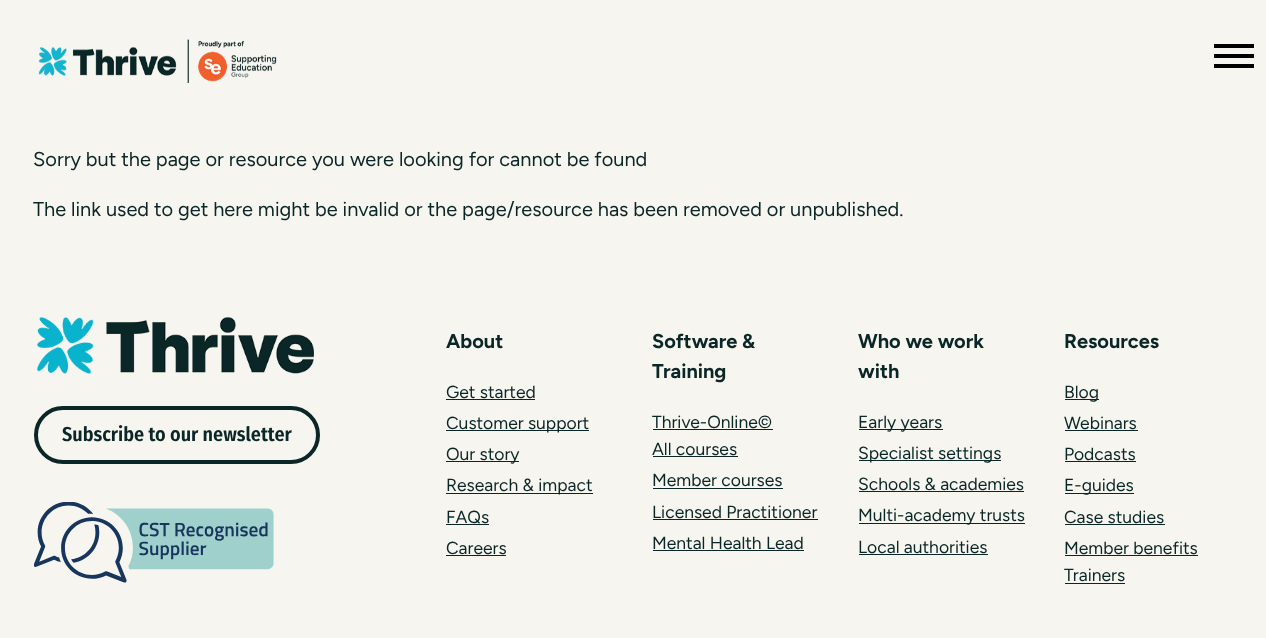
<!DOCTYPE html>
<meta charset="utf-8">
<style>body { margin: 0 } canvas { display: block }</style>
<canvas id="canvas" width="1266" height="638"></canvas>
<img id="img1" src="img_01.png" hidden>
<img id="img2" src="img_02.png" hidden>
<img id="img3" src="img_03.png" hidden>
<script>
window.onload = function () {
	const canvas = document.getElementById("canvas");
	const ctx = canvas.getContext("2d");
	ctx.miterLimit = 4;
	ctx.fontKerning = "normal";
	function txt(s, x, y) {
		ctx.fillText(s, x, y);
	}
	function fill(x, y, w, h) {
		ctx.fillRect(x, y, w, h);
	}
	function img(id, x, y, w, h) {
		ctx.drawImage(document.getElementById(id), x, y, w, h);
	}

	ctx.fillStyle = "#F7F5F0";
	fill(0, 0, 1266, 638);
	img("img1", 38, 39, 239, 44);
	ctx.fillStyle = "#000000";
	fill(1214, 44, 40, 4);
	fill(1214, 54, 40, 4);
	fill(1214, 64, 40, 4);
	img("img2", 37, 317, 277, 57);
	ctx.beginPath();
	ctx.roundRect(36, 408, 282, 54, 27);
	ctx.strokeStyle = "#0A2626";
	ctx.lineWidth = 4;
	ctx.stroke();
	img("img3", 34, 502, 240, 81);
	ctx.fillStyle = "#0A2626";
	fill(446, 399, 89, 1);
	fill(446, 430, 143, 1);
	fill(446, 461, 73, 1);
	fill(446, 493, 147, 1);
	fill(446, 524, 43, 1);
	fill(446, 555, 60, 1);
	fill(653, 429, 120, 1);
	fill(653, 456, 85, 1);
	fill(653, 488, 130, 1);
	fill(653, 519, 165, 1);
	fill(653, 550, 151, 1);
	fill(859, 429, 84, 1);
	fill(859, 460, 142, 1);
	fill(859, 491, 165, 1);
	fill(859, 523, 166, 1);
	fill(859, 554, 129, 1);
	fill(1065, 399, 34, 1);
	fill(1065, 430, 73, 1);
	fill(1065, 461, 71, 1);
	fill(1065, 493, 69, 1);
	fill(1065, 524, 100, 1);
	fill(1065, 555, 133, 1);
	fill(1065, 583, 60, 1);
	ctx.font = "20px Figtree";
	txt("Sorry but the page or resource you were looking for cannot be found", 33, 166);
	txt("The link used to get here might be invalid or the page/resource has been removed or unpublished.", 33, 216);
	ctx.font = "600 20px Fira Sans Condensed";
	txt("Subscribe to our newsletter", 62, 441);
	ctx.font = "bold 20px Figtree";
	txt("About", 446, 348);
	ctx.font = "17.5px Figtree";
	txt("Get started", 446, 398);
	txt("Customer support", 446, 429);
	txt("Our story", 446, 460);
	txt("Research & impact", 446, 491);
	txt("FAQs", 446, 523);
	txt("Careers", 446, 554);
	ctx.font = "bold 20px Figtree";
	txt("Software &", 652, 348);
	txt("Training", 652, 378);
	ctx.font = "17.5px Figtree";
	txt("Thrive-Online©", 652, 428);
	txt("All courses", 652, 455);
	txt("Member courses", 652, 486);
	txt("Licensed Practitioner", 652, 518);
	txt("Mental Health Lead", 652, 549);
	ctx.font = "bold 20px Figtree";
	txt("Who we work", 858, 348);
	txt("with", 858, 378);
	ctx.font = "17.5px Figtree";
	txt("Early years", 858, 428);
	txt("Specialist settings", 858, 459);
	txt("Schools & academies", 858, 490);
	txt("Multi-academy trusts", 858, 521);
	txt("Local authorities", 858, 553);
	ctx.font = "bold 20px Figtree";
	txt("Resources", 1064, 348);
	ctx.font = "17.5px Figtree";
	txt("Blog", 1064, 398);
	txt("Webinars", 1064, 429);
	txt("Podcasts", 1064, 460);
	txt("E-guides", 1064, 491);
	txt("Case studies", 1064, 523);
	txt("Member benefits", 1064, 554);
	txt("Trainers", 1064, 581);
};
</script>
